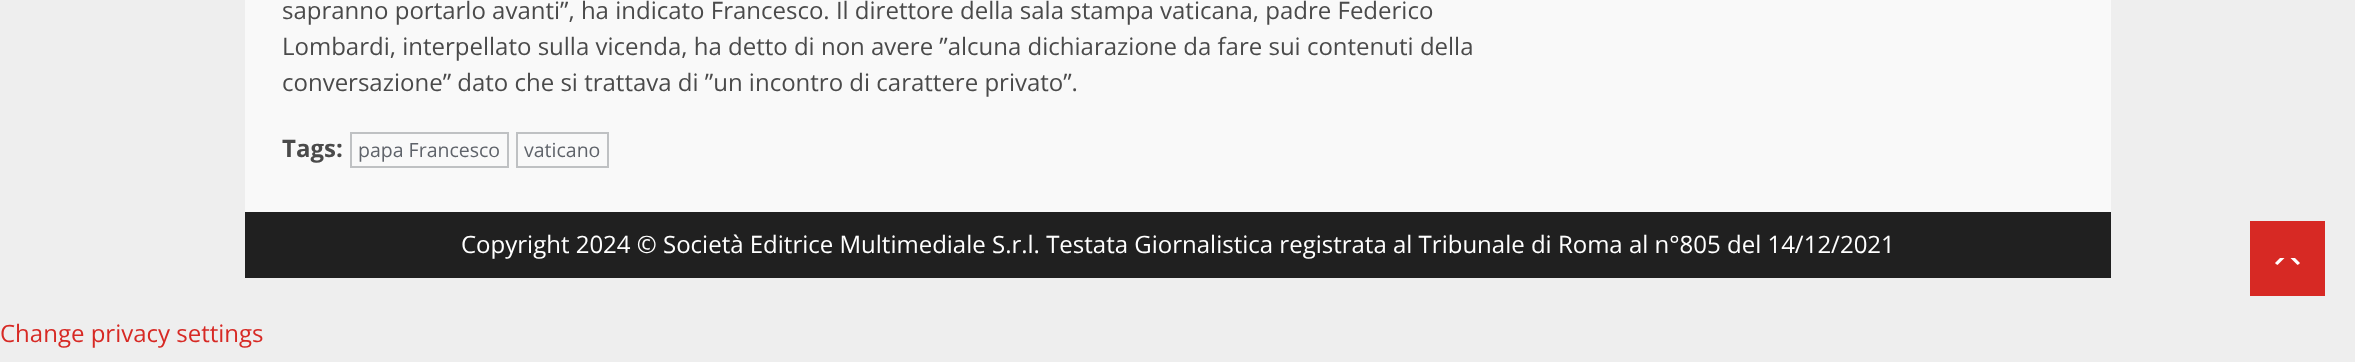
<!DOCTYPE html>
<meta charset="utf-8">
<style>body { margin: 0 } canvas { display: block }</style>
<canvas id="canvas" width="2355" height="362"></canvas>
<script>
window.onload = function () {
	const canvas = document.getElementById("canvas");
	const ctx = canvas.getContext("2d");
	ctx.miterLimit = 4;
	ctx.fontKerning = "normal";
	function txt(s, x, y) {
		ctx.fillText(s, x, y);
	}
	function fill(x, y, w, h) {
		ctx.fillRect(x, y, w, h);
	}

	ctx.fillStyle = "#EEEEEE";
	fill(0, 0, 2355, 362);
	ctx.fillStyle = "#F9F9F9";
	fill(245, 0, 1866, 212);
	ctx.strokeStyle = "#BFC1C3";
	ctx.lineWidth = 2;
	ctx.strokeRect(351, 133, 157, 34);
	ctx.strokeRect(517, 133, 91, 34);
	ctx.fillStyle = "#202020";
	fill(245, 212, 1866, 66);
	ctx.fillStyle = "#D72924";
	fill(2250, 221, 75, 75);
	ctx.fillStyle = "#FFFFFF";
	ctx.beginPath();
	ctx.moveTo(2280, 265.5);
	ctx.lineTo(2295, 265.5);
	ctx.bezierCurveTo(2297, 265.5, 2299, 264.5, 2300, 263);
	ctx.lineTo(2295, 258);
	ctx.lineTo(2280, 258);
	ctx.lineTo(2275, 263);
	ctx.bezierCurveTo(2276, 264.5, 2278, 265.5, 2280, 265.5);
	ctx.closePath();
	ctx.fill();
	ctx.fillStyle = "#D72924";
	ctx.beginPath();
	ctx.moveTo(2302.5, 270);
	ctx.lineTo(2272.5, 270);
	ctx.lineTo(2287.5, 255);
	ctx.closePath();
	ctx.fill();
	ctx.font = "24px Open Sans";
	ctx.fillStyle = "#4A4A4A";
	txt("sapranno portarlo avanti”, ha indicato Francesco. Il direttore della sala stampa vaticana, padre Federico", 282, 19);
	txt("Lombardi, interpellato sulla vicenda, ha detto di non avere ”alcuna dichiarazione da fare sui contenuti della", 282, 55);
	txt("conversazione” dato che si trattava di ”un incontro di carattere privato”.", 282, 91);
	ctx.font = "bold 24px Open Sans";
	txt("Tags:", 282, 157);
	ctx.font = "19.5px Open Sans";
	ctx.fillStyle = "#5F636A";
	txt("papa Francesco", 358, 157);
	txt("vaticano", 524, 157);
	ctx.font = "24px Open Sans";
	ctx.fillStyle = "#FFFFFF";
	txt("Copyright 2024 © Società Editrice Multimediale S.r.l. Testata Giornalistica registrata al Tribunale di Roma al n°805 del 14/12/2021", 461, 253);
	ctx.fillStyle = "#D72924";
	txt("Change privacy settings", 0, 342);
};
</script>
